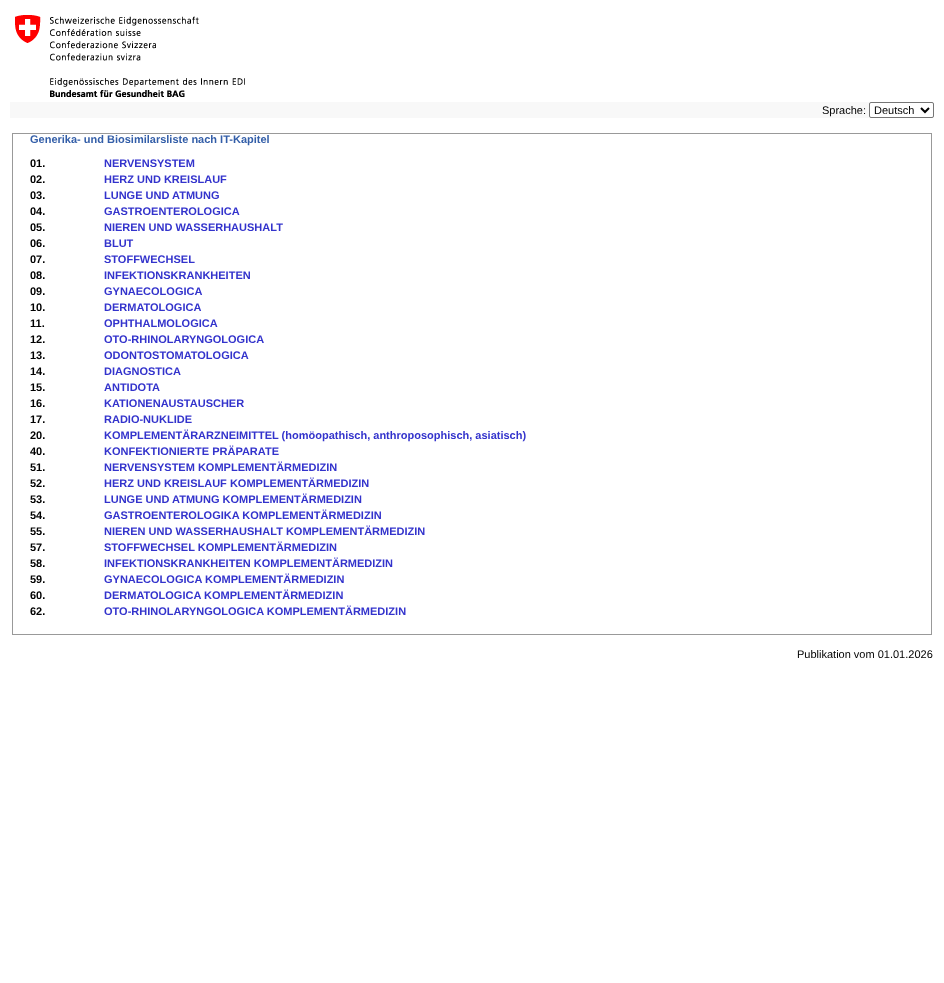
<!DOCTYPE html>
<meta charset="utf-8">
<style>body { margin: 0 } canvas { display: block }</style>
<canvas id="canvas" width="944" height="983"></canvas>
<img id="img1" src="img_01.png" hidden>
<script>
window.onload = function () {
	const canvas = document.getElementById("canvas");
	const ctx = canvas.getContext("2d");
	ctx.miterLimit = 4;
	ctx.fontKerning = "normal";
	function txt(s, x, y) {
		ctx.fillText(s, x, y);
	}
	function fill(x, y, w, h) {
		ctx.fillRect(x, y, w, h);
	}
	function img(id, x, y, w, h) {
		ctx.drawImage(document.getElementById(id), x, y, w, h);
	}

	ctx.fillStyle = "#FFFFFF";
	fill(0, 0, 944, 983);
	ctx.fillStyle = "#F8F8F8";
	fill(10, 102, 924, 16);
	img("img1", 15, 15, 230, 82);
	ctx.fillStyle = "#FFFFFF";
	ctx.beginPath();
	ctx.roundRect(869.5, 102.5, 64, 15, 1.5);
	ctx.fill();
	ctx.strokeStyle = "#767676";
	ctx.stroke();
	ctx.beginPath();
	ctx.moveTo(921, 108);
	ctx.lineTo(925, 112);
	ctx.lineTo(929, 108);
	ctx.strokeStyle = "#000000";
	ctx.lineWidth = 2;
	ctx.stroke();
	ctx.strokeStyle = "#999999";
	ctx.lineWidth = 1;
	ctx.strokeRect(12.5, 133.5, 919, 501);
	ctx.font = "11px Liberation Sans";
	ctx.fillStyle = "#000000";
	txt("Sprache:", 822, 114);
	txt("Deutsch", 874, 114);
	ctx.font = "bold 11px Liberation Sans";
	ctx.fillStyle = "#335EA8";
	txt("Generika- und Biosimilarsliste nach IT-Kapitel", 30, 143);
	ctx.fillStyle = "#000000";
	txt("01.", 30, 167);
	ctx.fillStyle = "#3333CC";
	txt("NERVENSYSTEM", 104, 167);
	ctx.fillStyle = "#000000";
	txt("02.", 30, 183);
	ctx.fillStyle = "#3333CC";
	txt("HERZ UND KREISLAUF", 104, 183);
	ctx.fillStyle = "#000000";
	txt("03.", 30, 199);
	ctx.fillStyle = "#3333CC";
	txt("LUNGE UND ATMUNG", 104, 199);
	ctx.fillStyle = "#000000";
	txt("04.", 30, 215);
	ctx.fillStyle = "#3333CC";
	txt("GASTROENTEROLOGICA", 104, 215);
	ctx.fillStyle = "#000000";
	txt("05.", 30, 231);
	ctx.fillStyle = "#3333CC";
	txt("NIEREN UND WASSERHAUSHALT", 104, 231);
	ctx.fillStyle = "#000000";
	txt("06.", 30, 247);
	ctx.fillStyle = "#3333CC";
	txt("BLUT", 104, 247);
	ctx.fillStyle = "#000000";
	txt("07.", 30, 263);
	ctx.fillStyle = "#3333CC";
	txt("STOFFWECHSEL", 104, 263);
	ctx.fillStyle = "#000000";
	txt("08.", 30, 279);
	ctx.fillStyle = "#3333CC";
	txt("INFEKTIONSKRANKHEITEN", 104, 279);
	ctx.fillStyle = "#000000";
	txt("09.", 30, 295);
	ctx.fillStyle = "#3333CC";
	txt("GYNAECOLOGICA", 104, 295);
	ctx.fillStyle = "#000000";
	txt("10.", 30, 311);
	ctx.fillStyle = "#3333CC";
	txt("DERMATOLOGICA", 104, 311);
	ctx.fillStyle = "#000000";
	txt("11.", 30, 327);
	ctx.fillStyle = "#3333CC";
	txt("OPHTHALMOLOGICA", 104, 327);
	ctx.fillStyle = "#000000";
	txt("12.", 30, 343);
	ctx.fillStyle = "#3333CC";
	txt("OTO-RHINOLARYNGOLOGICA", 104, 343);
	ctx.fillStyle = "#000000";
	txt("13.", 30, 359);
	ctx.fillStyle = "#3333CC";
	txt("ODONTOSTOMATOLOGICA", 104, 359);
	ctx.fillStyle = "#000000";
	txt("14.", 30, 375);
	ctx.fillStyle = "#3333CC";
	txt("DIAGNOSTICA", 104, 375);
	ctx.fillStyle = "#000000";
	txt("15.", 30, 391);
	ctx.fillStyle = "#3333CC";
	txt("ANTIDOTA", 104, 391);
	ctx.fillStyle = "#000000";
	txt("16.", 30, 407);
	ctx.fillStyle = "#3333CC";
	txt("KATIONENAUSTAUSCHER", 104, 407);
	ctx.fillStyle = "#000000";
	txt("17.", 30, 423);
	ctx.fillStyle = "#3333CC";
	txt("RADIO-NUKLIDE", 104, 423);
	ctx.fillStyle = "#000000";
	txt("20.", 30, 439);
	ctx.fillStyle = "#3333CC";
	txt("KOMPLEMENTÄRARZNEIMITTEL (homöopathisch, anthroposophisch, asiatisch)", 104, 439);
	ctx.fillStyle = "#000000";
	txt("40.", 30, 455);
	ctx.fillStyle = "#3333CC";
	txt("KONFEKTIONIERTE PRÄPARATE", 104, 455);
	ctx.fillStyle = "#000000";
	txt("51.", 30, 471);
	ctx.fillStyle = "#3333CC";
	txt("NERVENSYSTEM KOMPLEMENTÄRMEDIZIN", 104, 471);
	ctx.fillStyle = "#000000";
	txt("52.", 30, 487);
	ctx.fillStyle = "#3333CC";
	txt("HERZ UND KREISLAUF KOMPLEMENTÄRMEDIZIN", 104, 487);
	ctx.fillStyle = "#000000";
	txt("53.", 30, 503);
	ctx.fillStyle = "#3333CC";
	txt("LUNGE UND ATMUNG KOMPLEMENTÄRMEDIZIN", 104, 503);
	ctx.fillStyle = "#000000";
	txt("54.", 30, 519);
	ctx.fillStyle = "#3333CC";
	txt("GASTROENTEROLOGIKA KOMPLEMENTÄRMEDIZIN", 104, 519);
	ctx.fillStyle = "#000000";
	txt("55.", 30, 535);
	ctx.fillStyle = "#3333CC";
	txt("NIEREN UND WASSERHAUSHALT KOMPLEMENTÄRMEDIZIN", 104, 535);
	ctx.fillStyle = "#000000";
	txt("57.", 30, 551);
	ctx.fillStyle = "#3333CC";
	txt("STOFFWECHSEL KOMPLEMENTÄRMEDIZIN", 104, 551);
	ctx.fillStyle = "#000000";
	txt("58.", 30, 567);
	ctx.fillStyle = "#3333CC";
	txt("INFEKTIONSKRANKHEITEN KOMPLEMENTÄRMEDIZIN", 104, 567);
	ctx.fillStyle = "#000000";
	txt("59.", 30, 583);
	ctx.fillStyle = "#3333CC";
	txt("GYNAECOLOGICA KOMPLEMENTÄRMEDIZIN", 104, 583);
	ctx.fillStyle = "#000000";
	txt("60.", 30, 599);
	ctx.fillStyle = "#3333CC";
	txt("DERMATOLOGICA KOMPLEMENTÄRMEDIZIN", 104, 599);
	ctx.fillStyle = "#000000";
	txt("62.", 30, 615);
	ctx.fillStyle = "#3333CC";
	txt("OTO-RHINOLARYNGOLOGICA KOMPLEMENTÄRMEDIZIN", 104, 615);
	ctx.font = "11px Liberation Sans";
	ctx.fillStyle = "#000000";
	txt("Publikation vom 01.01.2026", 797, 658);
};
</script>
